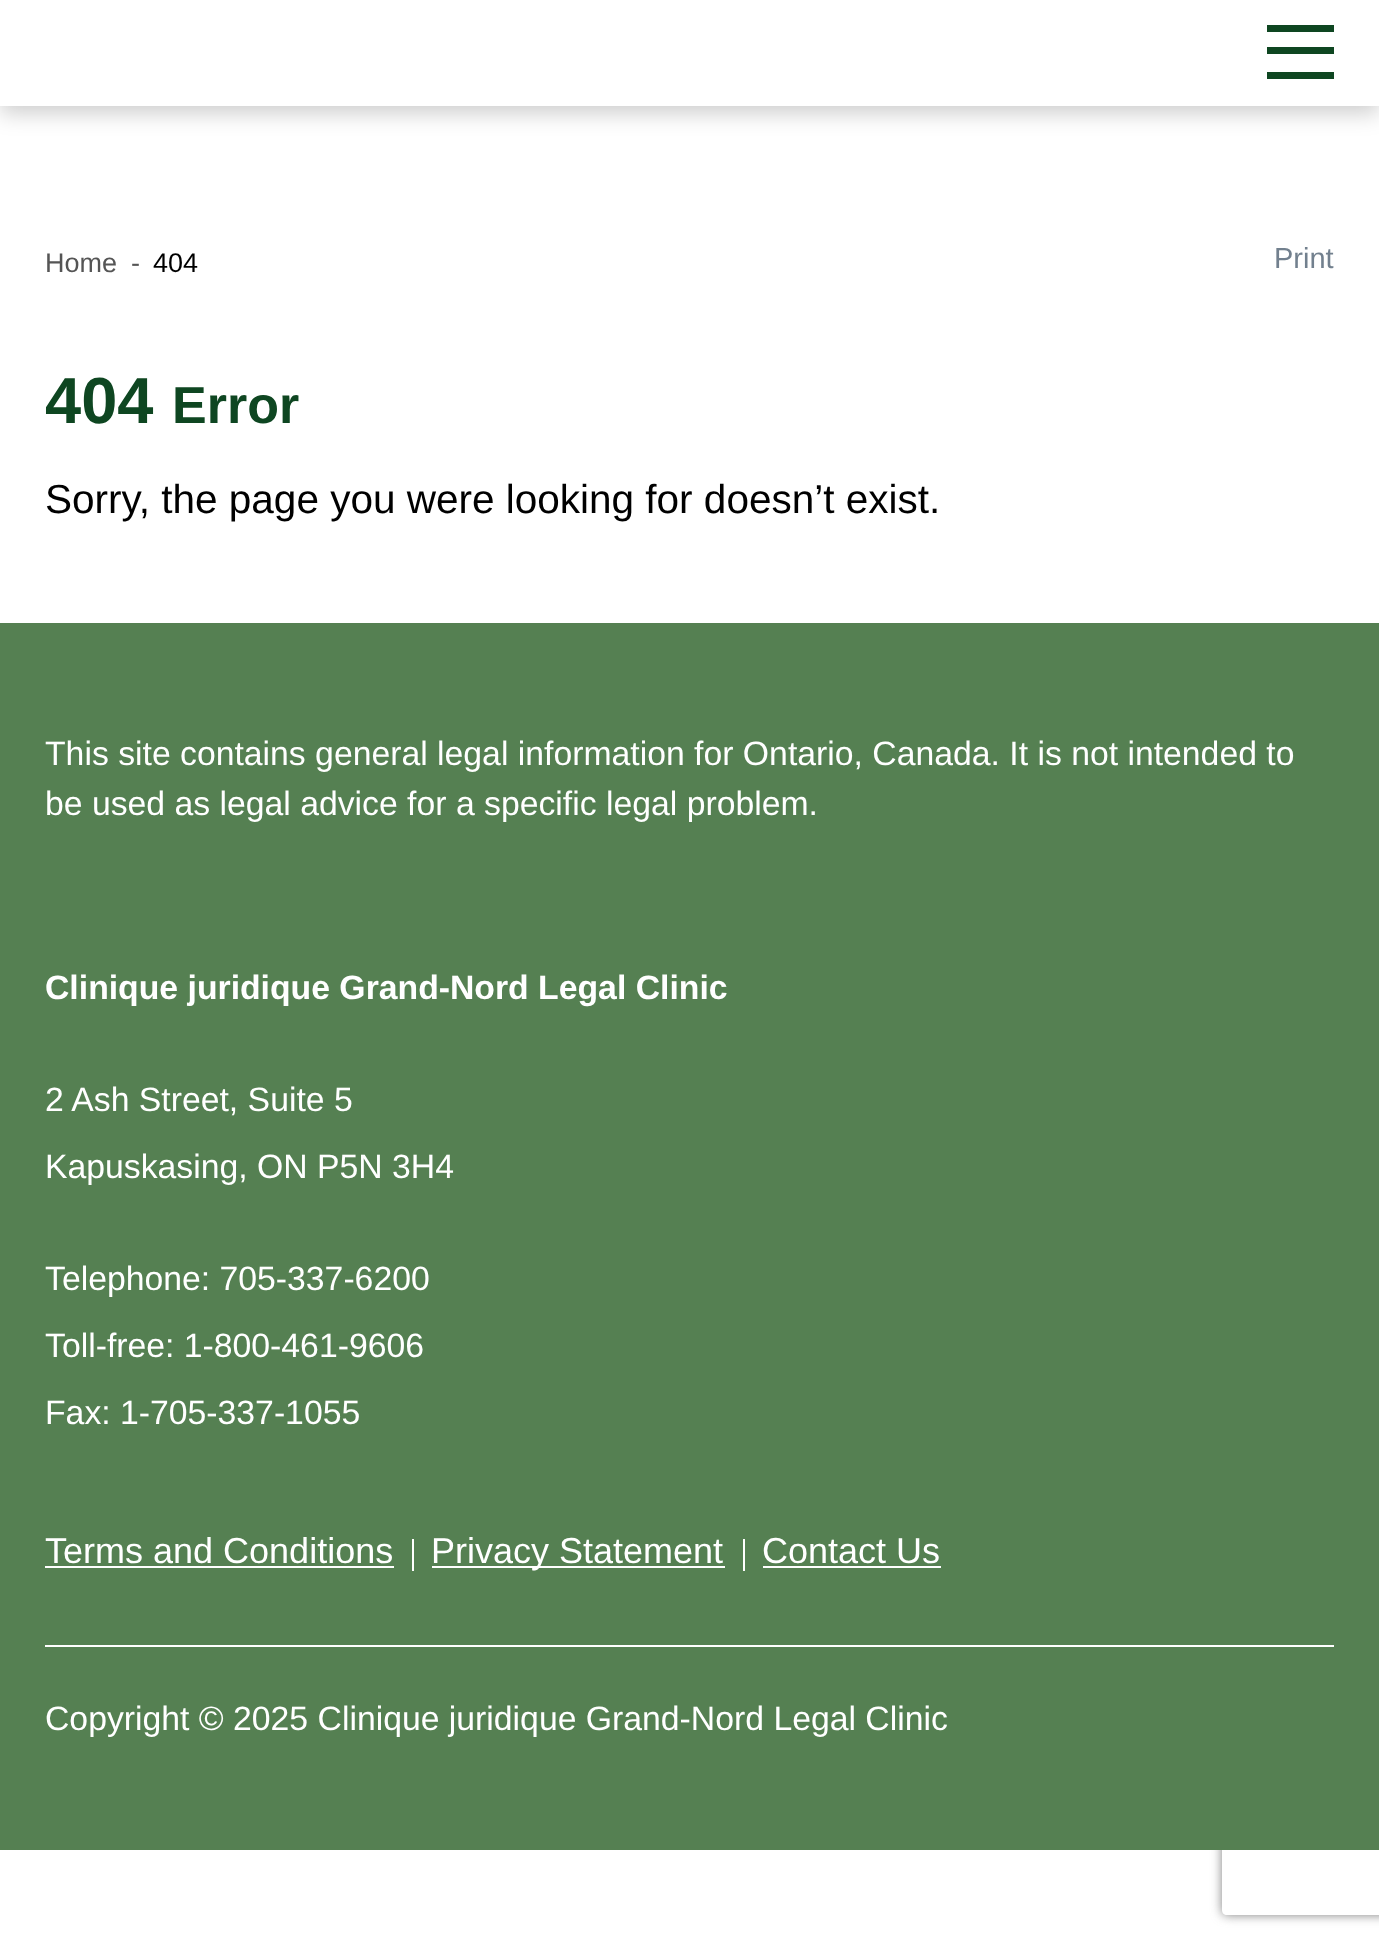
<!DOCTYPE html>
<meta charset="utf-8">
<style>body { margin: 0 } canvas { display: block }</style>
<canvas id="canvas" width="1379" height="1946"></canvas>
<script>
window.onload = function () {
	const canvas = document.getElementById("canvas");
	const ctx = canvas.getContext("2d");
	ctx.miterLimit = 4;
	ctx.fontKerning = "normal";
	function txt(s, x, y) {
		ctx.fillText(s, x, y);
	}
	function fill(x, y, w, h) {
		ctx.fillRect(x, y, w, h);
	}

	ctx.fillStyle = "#FFFFFF";
	fill(0, 0, 1379, 1946);
	ctx.fillStyle = "rgba(0, 0, 0, 0.2)";
	ctx.filter = "blur(11px)";
	ctx.beginPath();
	ctx.rect(0, 7, 1379, 106);
	ctx.fill();
	ctx.filter = "none";
	ctx.fillStyle = "#FFFFFF";
	fill(0, 0, 1379, 106);
	ctx.fillStyle = "#0E4621";
	fill(1267, 25, 67, 7);
	fill(1267, 47, 67, 7);
	fill(1267, 72, 67, 7);
	ctx.save();
	ctx.beginPath();
	ctx.moveTo(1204, 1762);
	ctx.lineTo(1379, 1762);
	ctx.lineTo(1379, 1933);
	ctx.lineTo(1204, 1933);
	ctx.closePath();
	ctx.moveTo(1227, 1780);
	ctx.lineTo(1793, 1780);
	ctx.bezierCurveTo(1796, 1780, 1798, 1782, 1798, 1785);
	ctx.lineTo(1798, 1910);
	ctx.bezierCurveTo(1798, 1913, 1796, 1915, 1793, 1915);
	ctx.lineTo(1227, 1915);
	ctx.bezierCurveTo(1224, 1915, 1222, 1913, 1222, 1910);
	ctx.lineTo(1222, 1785);
	ctx.bezierCurveTo(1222, 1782, 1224, 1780, 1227, 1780);
	ctx.closePath();
	ctx.clip("evenodd");
	ctx.fillStyle = "#808080";
	ctx.filter = "blur(5.5px)";
	ctx.beginPath();
	ctx.roundRect(1222, 1780, 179, 135, 5);
	ctx.fill();
	ctx.filter = "none";
	ctx.restore();
	ctx.fillStyle = "#558052";
	fill(0, 623, 1379, 1227);
	ctx.fillStyle = "#FFFFFF";
	fill(45, 1566, 349, 2);
	fill(412, 1539, 2, 32);
	fill(432, 1566, 293, 2);
	fill(743, 1539, 2, 32);
	fill(763, 1566, 178, 2);
	fill(45, 1645, 1289, 2);
	ctx.font = "27px Liberation Sans";
	ctx.fillStyle = "#555555";
	txt("Home", 45, 272);
	txt("-", 131, 272);
	ctx.fillStyle = "#000000";
	txt("404", 153, 272);
	ctx.font = "29px Liberation Sans";
	ctx.fillStyle = "#72808E";
	txt("Print", 1274, 268);
	ctx.font = "bold 65px Liberation Sans";
	ctx.fillStyle = "#0E4621";
	txt("404", 45, 423);
	ctx.font = "bold 52px Liberation Sans";
	txt("Error", 172, 423);
	ctx.font = "40.5px Liberation Sans";
	ctx.fillStyle = "#000000";
	txt("Sorry, the page you were looking for doesn’t exist.", 45, 513);
	ctx.font = "33.75px Liberation Sans";
	ctx.fillStyle = "#FFFFFF";
	txt("This site contains general legal information for Ontario, Canada. It is not intended to", 45, 765);
	txt("be used as legal advice for a specific legal problem.", 45, 815);
	ctx.font = "bold 33.75px Liberation Sans";
	txt("Clinique juridique Grand-Nord Legal Clinic", 45, 999);
	ctx.font = "33.75px Liberation Sans";
	txt("2 Ash Street, Suite 5", 45, 1111);
	txt("Kapuskasing, ON P5N 3H4", 45, 1178);
	txt("Telephone: 705-337-6200", 45, 1290);
	txt("Toll-free: 1-800-461-9606", 45, 1357);
	txt("Fax: 1-705-337-1055", 45, 1424);
	ctx.font = "36px Liberation Sans";
	txt("Terms and Conditions", 45, 1563);
	txt("Privacy Statement", 431, 1563);
	txt("Contact Us", 762, 1563);
	ctx.font = "33.75px Liberation Sans";
	txt("Copyright © 2025 Clinique juridique Grand-Nord Legal Clinic", 45, 1730);
};
</script>
